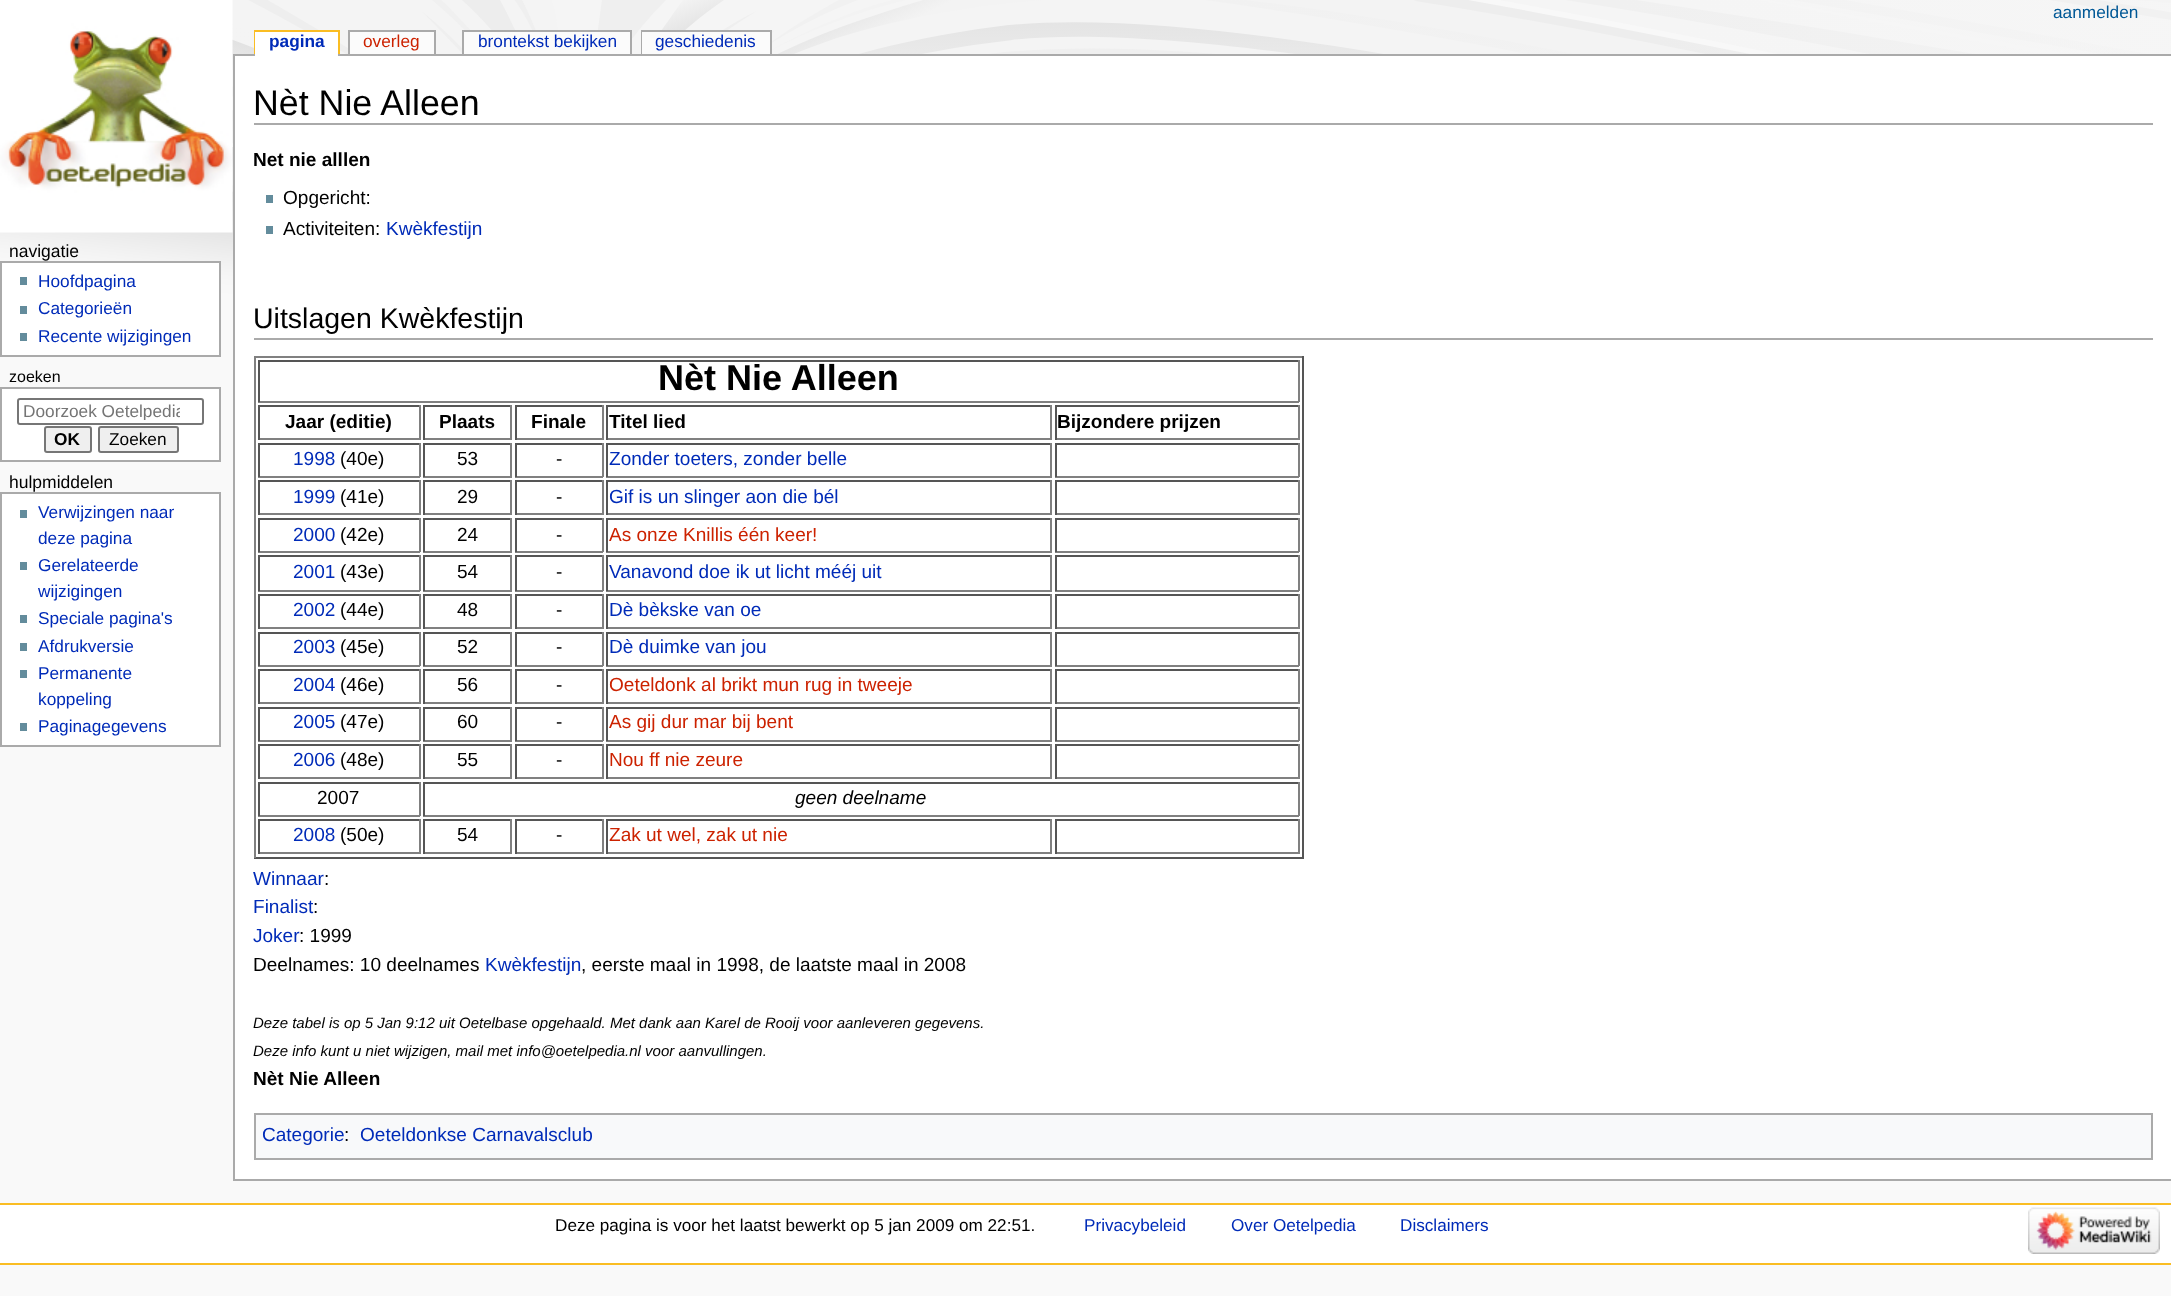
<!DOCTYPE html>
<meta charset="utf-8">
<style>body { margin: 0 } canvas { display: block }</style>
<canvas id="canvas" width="2171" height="1296"></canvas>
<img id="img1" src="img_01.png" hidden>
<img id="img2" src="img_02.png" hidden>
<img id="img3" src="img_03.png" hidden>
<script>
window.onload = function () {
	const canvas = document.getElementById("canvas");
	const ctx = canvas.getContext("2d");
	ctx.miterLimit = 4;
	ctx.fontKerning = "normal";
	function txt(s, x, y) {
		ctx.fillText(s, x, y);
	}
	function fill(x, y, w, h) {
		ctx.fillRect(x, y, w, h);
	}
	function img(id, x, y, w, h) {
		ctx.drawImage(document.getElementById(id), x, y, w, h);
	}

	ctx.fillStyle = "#F9F9F9";
	fill(0, 0, 2171, 1296);
	img("img1", 0, 0, 2171, 315);
	img("img2", 0, 0, 233, 233);
	ctx.fillStyle = "#FABD23";
	fill(254, 30, 85, 2);
	fill(338, 30, 2, 24);
	fill(254, 30, 2, 24);
	ctx.fillStyle = "#AAAAAA";
	fill(233, 54, 1938, 2);
	ctx.fillStyle = "#FFFFFF";
	fill(255, 32, 83, 24);
	ctx.fillStyle = "#AAAAAA";
	fill(348, 30, 87, 2);
	fill(434, 30, 2, 24);
	fill(348, 30, 2, 24);
	ctx.fillStyle = "#FBFBFB";
	fill(350, 32, 84, 22);
	ctx.fillStyle = "#AAAAAA";
	fill(462, 30, 170, 2);
	fill(630, 30, 2, 24);
	fill(462, 30, 2, 24);
	ctx.fillStyle = "#FBFBFB";
	fill(464, 32, 166, 22);
	ctx.fillStyle = "#AAAAAA";
	fill(641, 30, 130, 2);
	fill(770, 30, 2, 24);
	fill(641, 30, 2, 24);
	ctx.fillStyle = "#FBFBFB";
	fill(642, 32, 128, 22);
	ctx.fillStyle = "#FFFFFF";
	ctx.beginPath();
	ctx.rect(1, 262, 219, 94);
	ctx.fill();
	ctx.strokeStyle = "#AAAAAA";
	ctx.lineWidth = 2;
	ctx.stroke();
	ctx.fillStyle = "#638C9C";
	fill(20, 277, 7, 8);
	fill(20, 306, 7, 8);
	fill(20, 333, 7, 8);
	ctx.fillStyle = "#FFFFFF";
	ctx.beginPath();
	ctx.rect(1, 388, 219, 73);
	ctx.fill();
	ctx.stroke();
	ctx.beginPath();
	ctx.roundRect(18, 399, 185, 25, 2);
	ctx.strokeStyle = "#767676";
	ctx.stroke();
	ctx.fillStyle = "#EFEFEF";
	ctx.beginPath();
	ctx.roundRect(45, 427, 46, 25, 2);
	ctx.fill();
	ctx.stroke();
	ctx.beginPath();
	ctx.roundRect(99, 427, 79, 25, 2);
	ctx.fill();
	ctx.stroke();
	ctx.fillStyle = "#FFFFFF";
	ctx.beginPath();
	ctx.rect(1, 493, 219, 253);
	ctx.fill();
	ctx.strokeStyle = "#AAAAAA";
	ctx.stroke();
	ctx.fillStyle = "#638C9C";
	fill(20, 510, 7, 8);
	fill(20, 562, 7, 8);
	fill(20, 615, 7, 8);
	fill(20, 643, 7, 8);
	fill(20, 670, 7, 8);
	fill(20, 723, 7, 8);
	ctx.fillStyle = "#FFFFFF";
	fill(235, 56, 1936, 1123);
	ctx.fillStyle = "#AAAAAA";
	fill(233, 1179, 1938, 2);
	fill(233, 54, 2, 1127);
	fill(254, 123, 1899, 2);
	ctx.fillStyle = "#638C9C";
	fill(266, 195, 7, 8);
	fill(266, 226, 7, 8);
	ctx.fillStyle = "#AAAAAA";
	fill(254, 338, 1899, 2);
	ctx.fillStyle = "#808080";
	fill(254, 356, 1050, 2);
	ctx.fillStyle = "#555555";
	fill(1302, 356, 2, 502);
	fill(254, 857, 1050, 2);
	ctx.fillStyle = "#808080";
	fill(254, 356, 2, 502);
	ctx.fillStyle = "#555555";
	fill(258, 360, 1041, 2);
	ctx.fillStyle = "#808080";
	fill(1298, 360, 2, 42);
	fill(258, 401, 1041, 2);
	ctx.fillStyle = "#555555";
	fill(258, 360, 2, 42);
	fill(258, 405, 162, 2);
	ctx.fillStyle = "#808080";
	fill(419, 405, 2, 35);
	fill(258, 438, 162, 2);
	ctx.fillStyle = "#555555";
	fill(258, 405, 2, 35);
	fill(423, 405, 89, 2);
	ctx.fillStyle = "#808080";
	fill(510, 405, 2, 35);
	fill(423, 438, 89, 2);
	ctx.fillStyle = "#555555";
	fill(423, 405, 2, 35);
	fill(515, 405, 88, 2);
	ctx.fillStyle = "#808080";
	fill(602, 405, 2, 35);
	fill(515, 438, 88, 2);
	ctx.fillStyle = "#555555";
	fill(515, 405, 2, 35);
	fill(606, 405, 446, 2);
	ctx.fillStyle = "#808080";
	fill(1050, 405, 2, 35);
	fill(606, 438, 446, 2);
	ctx.fillStyle = "#555555";
	fill(606, 405, 2, 35);
	fill(1055, 405, 244, 2);
	ctx.fillStyle = "#808080";
	fill(1298, 405, 2, 35);
	fill(1055, 438, 244, 2);
	ctx.fillStyle = "#555555";
	fill(1055, 405, 2, 35);
	fill(258, 443, 162, 2);
	ctx.fillStyle = "#808080";
	fill(419, 443, 2, 34);
	fill(258, 476, 162, 2);
	ctx.fillStyle = "#555555";
	fill(258, 443, 2, 34);
	fill(423, 443, 89, 2);
	ctx.fillStyle = "#808080";
	fill(510, 443, 2, 34);
	fill(423, 476, 89, 2);
	ctx.fillStyle = "#555555";
	fill(423, 443, 2, 34);
	fill(515, 443, 88, 2);
	ctx.fillStyle = "#808080";
	fill(602, 443, 2, 34);
	fill(515, 476, 88, 2);
	ctx.fillStyle = "#555555";
	fill(515, 443, 2, 34);
	fill(606, 443, 446, 2);
	ctx.fillStyle = "#808080";
	fill(1050, 443, 2, 34);
	fill(606, 476, 446, 2);
	ctx.fillStyle = "#555555";
	fill(606, 443, 2, 34);
	fill(1055, 443, 244, 2);
	ctx.fillStyle = "#808080";
	fill(1298, 443, 2, 34);
	fill(1055, 476, 244, 2);
	ctx.fillStyle = "#555555";
	fill(1055, 443, 2, 34);
	fill(258, 480, 162, 2);
	ctx.fillStyle = "#808080";
	fill(419, 480, 2, 35);
	fill(258, 513, 162, 2);
	ctx.fillStyle = "#555555";
	fill(258, 480, 2, 35);
	fill(423, 480, 89, 2);
	ctx.fillStyle = "#808080";
	fill(510, 480, 2, 35);
	fill(423, 513, 89, 2);
	ctx.fillStyle = "#555555";
	fill(423, 480, 2, 35);
	fill(515, 480, 88, 2);
	ctx.fillStyle = "#808080";
	fill(602, 480, 2, 35);
	fill(515, 513, 88, 2);
	ctx.fillStyle = "#555555";
	fill(515, 480, 2, 35);
	fill(606, 480, 446, 2);
	ctx.fillStyle = "#808080";
	fill(1050, 480, 2, 35);
	fill(606, 513, 446, 2);
	ctx.fillStyle = "#555555";
	fill(606, 480, 2, 35);
	fill(1055, 480, 244, 2);
	ctx.fillStyle = "#808080";
	fill(1298, 480, 2, 35);
	fill(1055, 513, 244, 2);
	ctx.fillStyle = "#555555";
	fill(1055, 480, 2, 35);
	fill(258, 518, 162, 2);
	ctx.fillStyle = "#808080";
	fill(419, 518, 2, 34);
	fill(258, 551, 162, 2);
	ctx.fillStyle = "#555555";
	fill(258, 518, 2, 34);
	fill(423, 518, 89, 2);
	ctx.fillStyle = "#808080";
	fill(510, 518, 2, 34);
	fill(423, 551, 89, 2);
	ctx.fillStyle = "#555555";
	fill(423, 518, 2, 34);
	fill(515, 518, 88, 2);
	ctx.fillStyle = "#808080";
	fill(602, 518, 2, 34);
	fill(515, 551, 88, 2);
	ctx.fillStyle = "#555555";
	fill(515, 518, 2, 34);
	fill(606, 518, 446, 2);
	ctx.fillStyle = "#808080";
	fill(1050, 518, 2, 34);
	fill(606, 551, 446, 2);
	ctx.fillStyle = "#555555";
	fill(606, 518, 2, 34);
	fill(1055, 518, 244, 2);
	ctx.fillStyle = "#808080";
	fill(1298, 518, 2, 34);
	fill(1055, 551, 244, 2);
	ctx.fillStyle = "#555555";
	fill(1055, 518, 2, 34);
	fill(258, 555, 162, 2);
	ctx.fillStyle = "#808080";
	fill(419, 555, 2, 36);
	fill(258, 590, 162, 2);
	ctx.fillStyle = "#555555";
	fill(258, 555, 2, 36);
	fill(423, 555, 89, 2);
	ctx.fillStyle = "#808080";
	fill(510, 555, 2, 36);
	fill(423, 590, 89, 2);
	ctx.fillStyle = "#555555";
	fill(423, 555, 2, 36);
	fill(515, 555, 88, 2);
	ctx.fillStyle = "#808080";
	fill(602, 555, 2, 36);
	fill(515, 590, 88, 2);
	ctx.fillStyle = "#555555";
	fill(515, 555, 2, 36);
	fill(606, 555, 446, 2);
	ctx.fillStyle = "#808080";
	fill(1050, 555, 2, 36);
	fill(606, 590, 446, 2);
	ctx.fillStyle = "#555555";
	fill(606, 555, 2, 36);
	fill(1055, 555, 244, 2);
	ctx.fillStyle = "#808080";
	fill(1298, 555, 2, 36);
	fill(1055, 590, 244, 2);
	ctx.fillStyle = "#555555";
	fill(1055, 555, 2, 36);
	fill(258, 594, 162, 2);
	ctx.fillStyle = "#808080";
	fill(419, 594, 2, 35);
	fill(258, 627, 162, 2);
	ctx.fillStyle = "#555555";
	fill(258, 594, 2, 35);
	fill(423, 594, 89, 2);
	ctx.fillStyle = "#808080";
	fill(510, 594, 2, 35);
	fill(423, 627, 89, 2);
	ctx.fillStyle = "#555555";
	fill(423, 594, 2, 35);
	fill(515, 594, 88, 2);
	ctx.fillStyle = "#808080";
	fill(602, 594, 2, 35);
	fill(515, 627, 88, 2);
	ctx.fillStyle = "#555555";
	fill(515, 594, 2, 35);
	fill(606, 594, 446, 2);
	ctx.fillStyle = "#808080";
	fill(1050, 594, 2, 35);
	fill(606, 627, 446, 2);
	ctx.fillStyle = "#555555";
	fill(606, 594, 2, 35);
	fill(1055, 594, 244, 2);
	ctx.fillStyle = "#808080";
	fill(1298, 594, 2, 35);
	fill(1055, 627, 244, 2);
	ctx.fillStyle = "#555555";
	fill(1055, 594, 2, 35);
	fill(258, 632, 162, 2);
	ctx.fillStyle = "#808080";
	fill(419, 632, 2, 34);
	fill(258, 665, 162, 2);
	ctx.fillStyle = "#555555";
	fill(258, 632, 2, 34);
	fill(423, 632, 89, 2);
	ctx.fillStyle = "#808080";
	fill(510, 632, 2, 34);
	fill(423, 665, 89, 2);
	ctx.fillStyle = "#555555";
	fill(423, 632, 2, 34);
	fill(515, 632, 88, 2);
	ctx.fillStyle = "#808080";
	fill(602, 632, 2, 34);
	fill(515, 665, 88, 2);
	ctx.fillStyle = "#555555";
	fill(515, 632, 2, 34);
	fill(606, 632, 446, 2);
	ctx.fillStyle = "#808080";
	fill(1050, 632, 2, 34);
	fill(606, 665, 446, 2);
	ctx.fillStyle = "#555555";
	fill(606, 632, 2, 34);
	fill(1055, 632, 244, 2);
	ctx.fillStyle = "#808080";
	fill(1298, 632, 2, 34);
	fill(1055, 665, 244, 2);
	ctx.fillStyle = "#555555";
	fill(1055, 632, 2, 34);
	fill(258, 669, 162, 2);
	ctx.fillStyle = "#808080";
	fill(419, 669, 2, 35);
	fill(258, 702, 162, 2);
	ctx.fillStyle = "#555555";
	fill(258, 669, 2, 35);
	fill(423, 669, 89, 2);
	ctx.fillStyle = "#808080";
	fill(510, 669, 2, 35);
	fill(423, 702, 89, 2);
	ctx.fillStyle = "#555555";
	fill(423, 669, 2, 35);
	fill(515, 669, 88, 2);
	ctx.fillStyle = "#808080";
	fill(602, 669, 2, 35);
	fill(515, 702, 88, 2);
	ctx.fillStyle = "#555555";
	fill(515, 669, 2, 35);
	fill(606, 669, 446, 2);
	ctx.fillStyle = "#808080";
	fill(1050, 669, 2, 35);
	fill(606, 702, 446, 2);
	ctx.fillStyle = "#555555";
	fill(606, 669, 2, 35);
	fill(1055, 669, 244, 2);
	ctx.fillStyle = "#808080";
	fill(1298, 669, 2, 35);
	fill(1055, 702, 244, 2);
	ctx.fillStyle = "#555555";
	fill(1055, 669, 2, 35);
	fill(258, 707, 162, 2);
	ctx.fillStyle = "#808080";
	fill(419, 707, 2, 34);
	fill(258, 740, 162, 2);
	ctx.fillStyle = "#555555";
	fill(258, 707, 2, 34);
	fill(423, 707, 89, 2);
	ctx.fillStyle = "#808080";
	fill(510, 707, 2, 34);
	fill(423, 740, 89, 2);
	ctx.fillStyle = "#555555";
	fill(423, 707, 2, 34);
	fill(515, 707, 88, 2);
	ctx.fillStyle = "#808080";
	fill(602, 707, 2, 34);
	fill(515, 740, 88, 2);
	ctx.fillStyle = "#555555";
	fill(515, 707, 2, 34);
	fill(606, 707, 446, 2);
	ctx.fillStyle = "#808080";
	fill(1050, 707, 2, 34);
	fill(606, 740, 446, 2);
	ctx.fillStyle = "#555555";
	fill(606, 707, 2, 34);
	fill(1055, 707, 244, 2);
	ctx.fillStyle = "#808080";
	fill(1298, 707, 2, 34);
	fill(1055, 740, 244, 2);
	ctx.fillStyle = "#555555";
	fill(1055, 707, 2, 34);
	fill(258, 744, 162, 2);
	ctx.fillStyle = "#808080";
	fill(419, 744, 2, 35);
	fill(258, 777, 162, 2);
	ctx.fillStyle = "#555555";
	fill(258, 744, 2, 35);
	fill(423, 744, 89, 2);
	ctx.fillStyle = "#808080";
	fill(510, 744, 2, 35);
	fill(423, 777, 89, 2);
	ctx.fillStyle = "#555555";
	fill(423, 744, 2, 35);
	fill(515, 744, 88, 2);
	ctx.fillStyle = "#808080";
	fill(602, 744, 2, 35);
	fill(515, 777, 88, 2);
	ctx.fillStyle = "#555555";
	fill(515, 744, 2, 35);
	fill(606, 744, 446, 2);
	ctx.fillStyle = "#808080";
	fill(1050, 744, 2, 35);
	fill(606, 777, 446, 2);
	ctx.fillStyle = "#555555";
	fill(606, 744, 2, 35);
	fill(1055, 744, 244, 2);
	ctx.fillStyle = "#808080";
	fill(1298, 744, 2, 35);
	fill(1055, 777, 244, 2);
	ctx.fillStyle = "#555555";
	fill(1055, 744, 2, 35);
	fill(258, 782, 162, 2);
	ctx.fillStyle = "#808080";
	fill(419, 782, 2, 34);
	fill(258, 815, 162, 2);
	ctx.fillStyle = "#555555";
	fill(258, 782, 2, 34);
	fill(423, 782, 876, 2);
	ctx.fillStyle = "#808080";
	fill(1298, 782, 2, 34);
	fill(423, 815, 876, 2);
	ctx.fillStyle = "#555555";
	fill(423, 782, 2, 34);
	fill(258, 819, 162, 2);
	ctx.fillStyle = "#808080";
	fill(419, 819, 2, 35);
	fill(258, 852, 162, 2);
	ctx.fillStyle = "#555555";
	fill(258, 819, 2, 35);
	fill(423, 819, 89, 2);
	ctx.fillStyle = "#808080";
	fill(510, 819, 2, 35);
	fill(423, 852, 89, 2);
	ctx.fillStyle = "#555555";
	fill(423, 819, 2, 35);
	fill(515, 819, 88, 2);
	ctx.fillStyle = "#808080";
	fill(602, 819, 2, 35);
	fill(515, 852, 88, 2);
	ctx.fillStyle = "#555555";
	fill(515, 819, 2, 35);
	fill(606, 819, 446, 2);
	ctx.fillStyle = "#808080";
	fill(1050, 819, 2, 35);
	fill(606, 852, 446, 2);
	ctx.fillStyle = "#555555";
	fill(606, 819, 2, 35);
	fill(1055, 819, 244, 2);
	ctx.fillStyle = "#808080";
	fill(1298, 819, 2, 35);
	fill(1055, 852, 244, 2);
	ctx.fillStyle = "#555555";
	fill(1055, 819, 2, 35);
	ctx.fillStyle = "#F8F9FA";
	ctx.beginPath();
	ctx.rect(255, 1114, 1897, 45);
	ctx.fill();
	ctx.stroke();
	ctx.fillStyle = "#FFFFFF";
	fill(0, 1205, 2171, 58);
	ctx.fillStyle = "#FABD23";
	fill(0, 1203, 2171, 2);
	fill(0, 1263, 2171, 2);
	img("img3", 2028, 1207, 132, 47);
	ctx.font = "17.25px Liberation Sans";
	ctx.fillStyle = "#005896";
	txt("aanmelden", 2053, 18);
	ctx.font = "bold 17.25px Liberation Sans";
	ctx.fillStyle = "#002BB8";
	txt("pagina", 269, 47);
	ctx.font = "17.25px Liberation Sans";
	ctx.fillStyle = "#CC2200";
	txt("overleg", 363, 47);
	ctx.fillStyle = "#002BB8";
	txt("brontekst bekijken", 478, 47);
	txt("geschiedenis", 655, 47);
	ctx.font = "17.5px Liberation Sans";
	ctx.fillStyle = "#000000";
	txt("navigatie", 9, 257);
	ctx.font = "17.25px Liberation Sans";
	ctx.fillStyle = "#002BB8";
	txt("Hoofdpagina", 38, 287);
	txt("Categorieën", 38, 314);
	txt("Recente wijzigingen", 38, 342);
	ctx.font = "16px Liberation Sans";
	ctx.fillStyle = "#000000";
	txt("zoeken", 9, 382);
	ctx.save();
	ctx.beginPath();
	ctx.rect(23, 402, 157, 18);
	ctx.clip();
	ctx.font = "17.25px Liberation Sans";
	ctx.fillStyle = "#757575";
	txt("Doorzoek Oetelpedia", 23, 417);
	ctx.restore();
	ctx.font = "bold 17.25px Liberation Sans";
	txt("OK", 54, 445);
	ctx.font = "17.25px Liberation Sans";
	txt("Zoeken", 109, 445);
	ctx.font = "17.5px Liberation Sans";
	txt("hulpmiddelen", 9, 488);
	ctx.font = "17.25px Liberation Sans";
	ctx.fillStyle = "#002BB8";
	txt("Verwijzingen naar", 38, 518);
	txt("deze pagina", 38, 544);
	txt("Gerelateerde", 38, 571);
	txt("wijzigingen", 38, 597);
	txt("Speciale pagina's", 38, 624);
	txt("Afdrukversie", 38, 652);
	txt("Permanente", 38, 679);
	txt("koppeling", 38, 705);
	txt("Paginagegevens", 38, 732);
	ctx.font = "35.75px Liberation Sans";
	ctx.fillStyle = "#000000";
	txt("Nèt Nie Alleen", 253, 115);
	ctx.font = "bold 19.05px Liberation Sans";
	txt("Net nie alllen", 253, 166);
	ctx.font = "19.05px Liberation Sans";
	txt("Opgericht:", 283, 204);
	txt("Activiteiten:", 283, 235);
	ctx.fillStyle = "#002BB8";
	txt("Kwèkfestijn", 386, 235);
	ctx.font = "28.5px Liberation Sans";
	ctx.fillStyle = "#000000";
	txt("Uitslagen Kwèkfestijn", 253, 328);
	ctx.font = "bold 36px Liberation Sans";
	txt("Nèt Nie Alleen", 658, 390);
	ctx.font = "bold 19.05px Liberation Sans";
	txt("Jaar (editie)", 285, 428);
	txt("Plaats", 439, 428);
	txt("Finale", 531, 428);
	txt("Titel lied", 609, 428);
	txt("Bijzondere prijzen", 1057, 428);
	ctx.font = "19.05px Liberation Sans";
	ctx.fillStyle = "#002BB8";
	txt("1998", 293, 465);
	ctx.fillStyle = "#000000";
	txt("(40e)", 340, 465);
	txt("53", 457, 465);
	txt("-", 556, 465);
	ctx.fillStyle = "#002BB8";
	txt("Zonder toeters, zonder belle", 609, 465);
	txt("1999", 293, 503);
	ctx.fillStyle = "#000000";
	txt("(41e)", 340, 503);
	txt("29", 457, 503);
	txt("-", 556, 503);
	ctx.fillStyle = "#002BB8";
	txt("Gif is un slinger aon die bél", 609, 503);
	txt("2000", 293, 541);
	ctx.fillStyle = "#000000";
	txt("(42e)", 340, 541);
	txt("24", 457, 541);
	txt("-", 556, 541);
	ctx.fillStyle = "#CC2200";
	txt("As onze Knillis één keer!", 609, 541);
	ctx.fillStyle = "#002BB8";
	txt("2001", 293, 578);
	ctx.fillStyle = "#000000";
	txt("(43e)", 340, 578);
	txt("54", 457, 578);
	txt("-", 556, 578);
	ctx.fillStyle = "#002BB8";
	txt("Vanavond doe ik ut licht mééj uit", 609, 578);
	txt("2002", 293, 616);
	ctx.fillStyle = "#000000";
	txt("(44e)", 340, 616);
	txt("48", 457, 616);
	txt("-", 556, 616);
	ctx.fillStyle = "#002BB8";
	txt("Dè bèkske van oe", 609, 616);
	txt("2003", 293, 653);
	ctx.fillStyle = "#000000";
	txt("(45e)", 340, 653);
	txt("52", 457, 653);
	txt("-", 556, 653);
	ctx.fillStyle = "#002BB8";
	txt("Dè duimke van jou", 609, 653);
	txt("2004", 293, 691);
	ctx.fillStyle = "#000000";
	txt("(46e)", 340, 691);
	txt("56", 457, 691);
	txt("-", 556, 691);
	ctx.fillStyle = "#CC2200";
	txt("Oeteldonk al brikt mun rug in tweeje", 609, 691);
	ctx.fillStyle = "#002BB8";
	txt("2005", 293, 728);
	ctx.fillStyle = "#000000";
	txt("(47e)", 340, 728);
	txt("60", 457, 728);
	txt("-", 556, 728);
	ctx.fillStyle = "#CC2200";
	txt("As gij dur mar bij bent", 609, 728);
	ctx.fillStyle = "#002BB8";
	txt("2006", 293, 766);
	ctx.fillStyle = "#000000";
	txt("(48e)", 340, 766);
	txt("55", 457, 766);
	txt("-", 556, 766);
	ctx.fillStyle = "#CC2200";
	txt("Nou ff nie zeure", 609, 766);
	ctx.fillStyle = "#000000";
	txt("2007", 317, 804);
	ctx.font = "italic 19.05px Liberation Sans";
	txt("geen deelname", 795, 804);
	ctx.font = "19.05px Liberation Sans";
	ctx.fillStyle = "#002BB8";
	txt("2008", 293, 841);
	ctx.fillStyle = "#000000";
	txt("(50e)", 340, 841);
	txt("54", 457, 841);
	txt("-", 556, 841);
	ctx.fillStyle = "#CC2200";
	txt("Zak ut wel, zak ut nie", 609, 841);
	ctx.fillStyle = "#002BB8";
	txt("Winnaar", 253, 885);
	ctx.fillStyle = "#000000";
	txt(":", 324, 885);
	ctx.fillStyle = "#002BB8";
	txt("Finalist", 253, 913);
	ctx.fillStyle = "#000000";
	txt(":", 313, 913);
	ctx.fillStyle = "#002BB8";
	txt("Joker", 253, 942);
	ctx.fillStyle = "#000000";
	txt(": 1999", 299, 942);
	txt("Deelnames: 10 deelnames", 253, 971);
	ctx.fillStyle = "#002BB8";
	txt("Kwèkfestijn", 485, 971);
	ctx.fillStyle = "#000000";
	txt(", eerste maal in 1998, de laatste maal in 2008", 581, 971);
	ctx.font = "italic 15px Liberation Sans";
	txt("Deze tabel is op 5 Jan 9:12 uit Oetelbase opgehaald. Met dank aan Karel de Rooij voor aanleveren gegevens.", 253, 1028);
	txt("Deze info kunt u niet wijzigen, mail met info@oetelpedia.nl voor aanvullingen.", 253, 1056);
	ctx.font = "bold 19.05px Liberation Sans";
	txt("Nèt Nie Alleen", 253, 1085);
	ctx.font = "19.05px Liberation Sans";
	ctx.fillStyle = "#002BB8";
	txt("Categorie", 262, 1141);
	ctx.fillStyle = "#000000";
	txt(":", 344, 1141);
	ctx.fillStyle = "#002BB8";
	txt("Oeteldonkse Carnavalsclub", 360, 1141);
	ctx.font = "17.15px Liberation Sans";
	ctx.fillStyle = "#000000";
	txt("Deze pagina is voor het laatst bewerkt op 5 jan 2009 om 22:51.", 555, 1231);
	ctx.fillStyle = "#002BB8";
	txt("Privacybeleid", 1084, 1231);
	txt("Over Oetelpedia", 1231, 1231);
	txt("Disclaimers", 1400, 1231);
};
</script>
